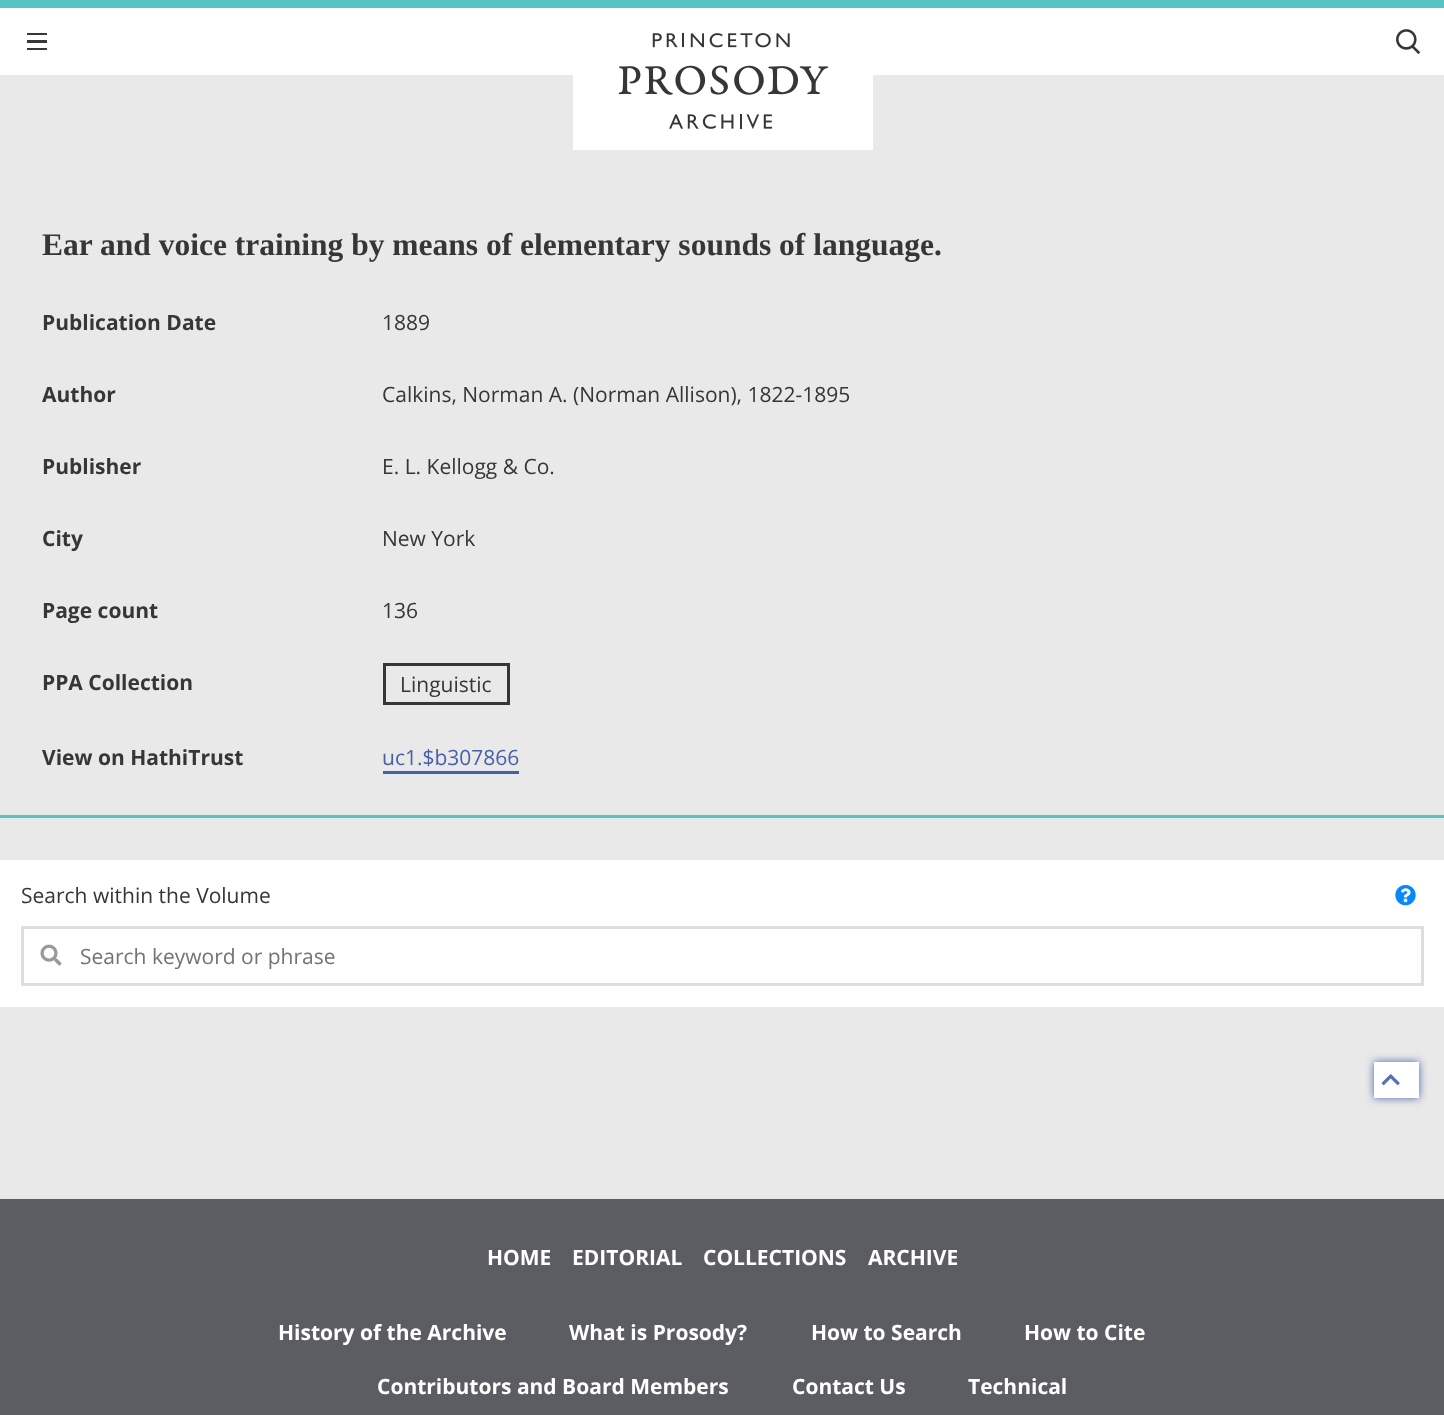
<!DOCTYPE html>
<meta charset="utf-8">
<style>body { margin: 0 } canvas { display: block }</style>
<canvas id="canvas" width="1444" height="1415"></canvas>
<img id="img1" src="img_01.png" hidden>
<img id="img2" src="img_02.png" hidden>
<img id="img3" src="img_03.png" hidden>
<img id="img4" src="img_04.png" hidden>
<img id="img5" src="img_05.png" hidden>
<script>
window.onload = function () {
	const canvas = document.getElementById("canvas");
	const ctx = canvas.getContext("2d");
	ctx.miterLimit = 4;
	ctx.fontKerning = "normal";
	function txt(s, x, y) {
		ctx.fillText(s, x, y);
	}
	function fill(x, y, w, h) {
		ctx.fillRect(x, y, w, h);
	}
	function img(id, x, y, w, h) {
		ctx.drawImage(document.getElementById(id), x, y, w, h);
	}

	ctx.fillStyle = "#E9E9E9";
	fill(0, 0, 1444, 1415);
	ctx.fillStyle = "#FFFFFF";
	fill(0, 8, 1444, 67);
	ctx.fillStyle = "#57C4C4";
	fill(0, 0, 1444, 8);
	ctx.fillStyle = "#363636";
	fill(27, 33, 20, 2);
	fill(27, 40, 20, 3);
	fill(27, 48, 20, 2);
	ctx.fillStyle = "#FFFFFF";
	fill(573, 75, 300, 75);
	img("img1", 618, 33, 211, 96);
	img("img2", 1396, 29, 25, 25);
	ctx.fillStyle = "#57C4C4";
	fill(0, 815, 1444, 3);
	ctx.strokeStyle = "#363636";
	ctx.lineWidth = 3;
	ctx.strokeRect(384.5, 664.5, 124, 39);
	ctx.fillStyle = "#4661AC";
	fill(383, 771, 136, 3);
	ctx.fillStyle = "#FFFFFF";
	fill(0, 860, 1444, 147);
	ctx.strokeStyle = "#DEDEDE";
	ctx.strokeRect(22.5, 927.5, 1400, 57);
	img("img3", 40, 944, 22, 22);
	img("img4", 1395, 885, 21, 21);
	ctx.fillStyle = "#4661AC";
	ctx.filter = "blur(4.5px)";
	ctx.beginPath();
	ctx.rect(1374, 1062, 45, 36);
	ctx.fill();
	ctx.filter = "none";
	ctx.fillStyle = "#FFFFFF";
	fill(1374, 1062, 45, 36);
	img("img5", 1381, 1074, 19, 11);
	ctx.fillStyle = "#5C5C63";
	fill(0, 1199, 1444, 216);
	ctx.font = "bold 31.5px Liberation Serif";
	ctx.fillStyle = "#363636";
	txt("Ear and voice training by means of elementary sounds of language.", 42, 255);
	ctx.font = "bold 21px Open Sans";
	txt("Publication Date", 42, 330);
	ctx.font = "21px Open Sans";
	txt("1889", 382, 330);
	ctx.font = "bold 21px Open Sans";
	txt("Author", 42, 402);
	ctx.font = "21px Open Sans";
	txt("Calkins, Norman A. (Norman Allison), 1822-1895", 382, 402);
	ctx.font = "bold 21px Open Sans";
	txt("Publisher", 42, 474);
	ctx.font = "21px Open Sans";
	txt("E. L. Kellogg & Co.", 382, 474);
	ctx.font = "bold 21px Open Sans";
	txt("City", 42, 546);
	ctx.font = "21px Open Sans";
	txt("New York", 382, 546);
	ctx.font = "bold 21px Open Sans";
	txt("Page count", 42, 618);
	ctx.font = "21px Open Sans";
	txt("136", 382, 618);
	ctx.font = "bold 21px Open Sans";
	txt("PPA Collection", 42, 690);
	ctx.font = "21px Open Sans";
	txt("Linguistic", 400, 692);
	ctx.font = "bold 21px Open Sans";
	txt("View on HathiTrust", 42, 765);
	ctx.font = "21px Open Sans";
	ctx.fillStyle = "#4661AC";
	txt("uc1.$b307866", 382, 765);
	ctx.fillStyle = "#363636";
	txt("Search within the Volume", 21, 903);
	ctx.fillStyle = "#737373";
	txt("Search keyword or phrase", 80, 964);
	ctx.font = "bold 21px Open Sans";
	ctx.fillStyle = "#FFFFFF";
	txt("HOME", 487, 1265);
	txt("EDITORIAL", 572, 1265);
	txt("COLLECTIONS", 703, 1265);
	txt("ARCHIVE", 868, 1265);
	txt("History of the Archive", 278, 1340);
	txt("What is Prosody?", 569, 1340);
	txt("How to Search", 811, 1340);
	txt("How to Cite", 1024, 1340);
	txt("Contributors and Board Members", 377, 1394);
	txt("Contact Us", 792, 1394);
	txt("Technical", 968, 1394);
};
</script>
